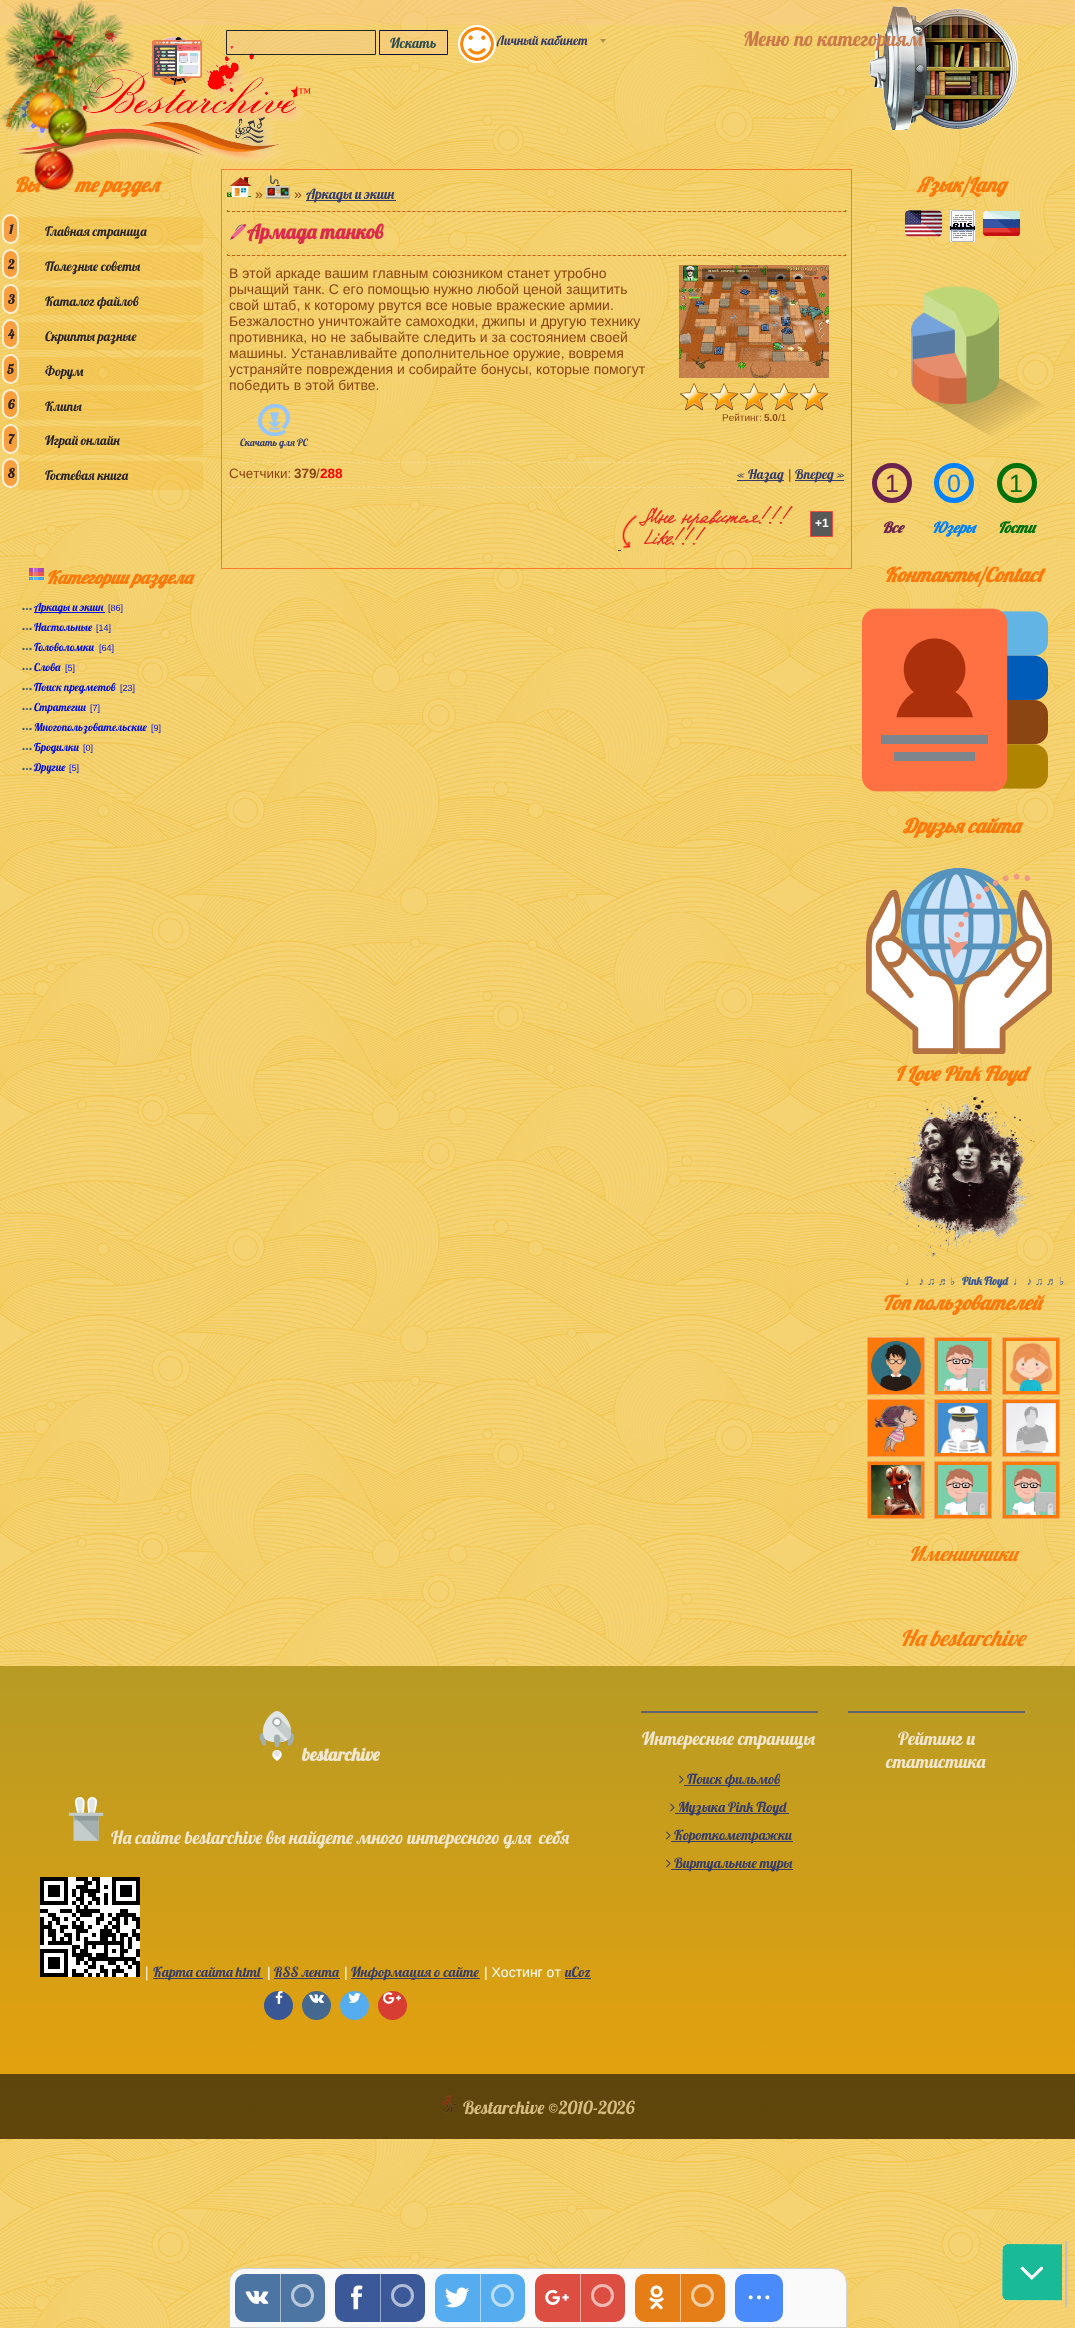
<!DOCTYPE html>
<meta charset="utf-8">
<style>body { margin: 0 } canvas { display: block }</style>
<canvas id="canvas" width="1075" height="2328"></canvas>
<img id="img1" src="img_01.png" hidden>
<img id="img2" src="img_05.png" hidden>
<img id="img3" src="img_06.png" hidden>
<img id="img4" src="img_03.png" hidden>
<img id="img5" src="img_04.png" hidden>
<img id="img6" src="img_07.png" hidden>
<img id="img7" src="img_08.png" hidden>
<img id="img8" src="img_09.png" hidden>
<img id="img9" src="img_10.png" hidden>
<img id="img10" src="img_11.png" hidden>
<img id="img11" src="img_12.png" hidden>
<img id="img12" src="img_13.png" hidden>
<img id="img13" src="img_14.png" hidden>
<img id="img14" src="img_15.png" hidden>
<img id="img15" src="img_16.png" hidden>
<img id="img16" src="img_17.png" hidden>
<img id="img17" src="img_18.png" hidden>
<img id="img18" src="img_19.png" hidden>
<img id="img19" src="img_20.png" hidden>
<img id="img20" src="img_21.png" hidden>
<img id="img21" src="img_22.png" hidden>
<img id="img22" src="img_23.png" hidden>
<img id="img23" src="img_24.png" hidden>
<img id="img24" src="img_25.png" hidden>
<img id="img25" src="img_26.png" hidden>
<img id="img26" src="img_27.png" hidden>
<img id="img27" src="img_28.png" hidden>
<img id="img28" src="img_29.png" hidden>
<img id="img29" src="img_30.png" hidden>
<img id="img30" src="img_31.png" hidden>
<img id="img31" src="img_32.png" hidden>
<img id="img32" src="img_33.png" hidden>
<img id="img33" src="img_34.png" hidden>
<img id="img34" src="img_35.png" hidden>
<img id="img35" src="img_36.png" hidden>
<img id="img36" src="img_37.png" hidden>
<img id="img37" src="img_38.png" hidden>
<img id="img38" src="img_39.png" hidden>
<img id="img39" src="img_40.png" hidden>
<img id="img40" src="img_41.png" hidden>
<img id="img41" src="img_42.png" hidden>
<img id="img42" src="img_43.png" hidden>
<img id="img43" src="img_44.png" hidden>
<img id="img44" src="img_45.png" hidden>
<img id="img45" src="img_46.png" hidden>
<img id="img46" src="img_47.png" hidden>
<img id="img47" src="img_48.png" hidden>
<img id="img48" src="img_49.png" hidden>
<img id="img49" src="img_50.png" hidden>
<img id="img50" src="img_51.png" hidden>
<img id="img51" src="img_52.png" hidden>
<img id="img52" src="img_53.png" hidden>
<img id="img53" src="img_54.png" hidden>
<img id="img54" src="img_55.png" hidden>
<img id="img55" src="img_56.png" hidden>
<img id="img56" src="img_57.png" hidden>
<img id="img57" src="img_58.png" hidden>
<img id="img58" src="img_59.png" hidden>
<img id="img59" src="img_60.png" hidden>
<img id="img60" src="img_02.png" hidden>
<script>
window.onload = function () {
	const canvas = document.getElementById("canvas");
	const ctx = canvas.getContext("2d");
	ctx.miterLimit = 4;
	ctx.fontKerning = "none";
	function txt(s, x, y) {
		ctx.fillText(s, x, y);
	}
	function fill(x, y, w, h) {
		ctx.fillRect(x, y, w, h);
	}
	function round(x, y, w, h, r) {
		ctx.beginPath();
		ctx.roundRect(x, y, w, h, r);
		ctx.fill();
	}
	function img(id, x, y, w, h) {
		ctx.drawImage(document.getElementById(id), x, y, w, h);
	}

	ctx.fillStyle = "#FFFFFF";
	fill(0, 0, 1075, 2328);
	img("img1", 0, 0, 1075, 2328);
	img("img2", 870, 6, 148, 124);
	img("img3", 2, 16, 303, 149);
	ctx.fillStyle = "rgba(253, 199, 154, 0.3)";
	fill(0, 0, 1075, 25);
	img("img4", 152, 40, 50, 38);
	ctx.fillStyle = "rgba(237, 199, 154, 0.3)";
	ctx.beginPath();
	ctx.rect(226.5, 30.5, 149, 24);
	ctx.fill();
	ctx.strokeStyle = "#252525";
	ctx.stroke();
	ctx.fillStyle = "rgba(253, 199, 154, 0.3)";
	ctx.beginPath();
	ctx.rect(379.5, 30.5, 68, 24);
	ctx.fill();
	ctx.strokeStyle = "#0C123B";
	ctx.stroke();
	ctx.fillStyle = "#FFFFFF";
	ctx.beginPath();
	ctx.arc(477, 44, 18, 0, Math.PI * 2);
	ctx.fill();
	ctx.strokeStyle = "#FFFFFF";
	ctx.lineWidth = 2;
	ctx.stroke();
	img("img5", 460, 27, 34, 34);
	ctx.fillStyle = "rgba(0, 0, 0, 0.3)";
	ctx.beginPath();
	ctx.moveTo(600, 39);
	ctx.lineTo(606, 39);
	ctx.lineTo(603, 43);
	ctx.closePath();
	ctx.fill();
	img("img6", 291, 85, 7, 13);
	ctx.fillStyle = "rgba(241, 183, 46, 0.3)";
	round(18, 217, 185, 28, 4);
	ctx.fillStyle = "rgba(253, 112, 17, 0.5)";
	ctx.beginPath();
	ctx.roundRect(3, 215, 15, 28, 7.5);
	ctx.fill();
	ctx.strokeStyle = "#FFEFD5";
	ctx.stroke();
	ctx.fillStyle = "rgba(241, 183, 46, 0.3)";
	round(18, 252, 185, 28, 4);
	ctx.fillStyle = "rgba(253, 112, 17, 0.5)";
	ctx.beginPath();
	ctx.roundRect(3, 250, 15, 28, 7.5);
	ctx.fill();
	ctx.stroke();
	ctx.fillStyle = "rgba(241, 183, 46, 0.3)";
	round(18, 287, 185, 28, 4);
	ctx.fillStyle = "rgba(253, 112, 17, 0.5)";
	ctx.beginPath();
	ctx.roundRect(3, 285, 15, 28, 7.5);
	ctx.fill();
	ctx.stroke();
	ctx.fillStyle = "rgba(241, 183, 46, 0.3)";
	round(18, 322, 185, 28, 4);
	ctx.fillStyle = "rgba(253, 112, 17, 0.5)";
	ctx.beginPath();
	ctx.roundRect(3, 320, 15, 28, 7.5);
	ctx.fill();
	ctx.stroke();
	ctx.fillStyle = "rgba(241, 183, 46, 0.3)";
	round(18, 357, 185, 28, 4);
	ctx.fillStyle = "rgba(253, 112, 17, 0.5)";
	ctx.beginPath();
	ctx.roundRect(3, 355, 15, 28, 7.5);
	ctx.fill();
	ctx.stroke();
	ctx.fillStyle = "rgba(241, 183, 46, 0.3)";
	round(18, 391, 185, 29, 4);
	ctx.fillStyle = "rgba(253, 112, 17, 0.5)";
	ctx.beginPath();
	ctx.roundRect(3, 390, 15, 28, 7.5);
	ctx.fill();
	ctx.stroke();
	ctx.fillStyle = "rgba(241, 183, 46, 0.3)";
	round(18, 426, 185, 29, 4);
	ctx.fillStyle = "rgba(253, 112, 17, 0.5)";
	ctx.beginPath();
	ctx.roundRect(3, 425, 15, 28, 7.5);
	ctx.fill();
	ctx.stroke();
	ctx.fillStyle = "rgba(241, 183, 46, 0.3)";
	round(18, 461, 185, 29, 4);
	ctx.fillStyle = "rgba(253, 112, 17, 0.5)";
	ctx.beginPath();
	ctx.roundRect(3, 459, 15, 28, 7.5);
	ctx.fill();
	ctx.stroke();
	img("img7", 29, 568, 15, 12);
	img("img8", 22, 607, 10, 4);
	ctx.fillStyle = "#000FE6";
	fill(34, 612, 71, 1);
	img("img9", 22, 627, 10, 4);
	img("img10", 22, 647, 10, 4);
	img("img11", 22, 667, 10, 4);
	img("img12", 22, 687, 10, 4);
	img("img13", 22, 707, 10, 4);
	img("img14", 22, 727, 10, 4);
	img("img15", 22, 747, 10, 4);
	img("img16", 22, 767, 10, 4);
	ctx.strokeStyle = "rgba(255, 66, 0, 0.6)";
	ctx.lineWidth = 1;
	ctx.strokeRect(221.5, 169.5, 630, 399);
	img("img17", 227, 177, 24, 21);
	img("img18", 266, 175, 24, 24);
	ctx.fillStyle = "#373D6C";
	fill(306, 200, 90, 1);
	ctx.fillStyle = "#CF5A0E";
	fill(845, 210, 1, 2);
	ctx.beginPath();
	ctx.moveTo(227, 211.5);
	ctx.lineTo(846, 211.5);
	ctx.strokeStyle = "#CF5A0E";
	ctx.setLineDash([3, 2.01]);
	ctx.stroke();
	fill(227, 210, 1, 2);
	img("img19", 230, 224, 16, 16);
	fill(845, 254, 1, 2);
	ctx.beginPath();
	ctx.moveTo(227, 255.5);
	ctx.lineTo(846, 255.5);
	ctx.stroke();
	fill(227, 254, 1, 2);
	img("img20", 258, 404, 32, 32);
	img("img21", 679, 265, 150, 113);
	img("img22", 680, 383, 148, 28);
	img("img23", 680, 383, 148, 28);
	ctx.beginPath();
	ctx.moveTo(227, 462.5);
	ctx.lineTo(846, 462.5);
	ctx.strokeStyle = "#F1DC92";
	ctx.stroke();
	ctx.beginPath();
	ctx.moveTo(227, 487.5);
	ctx.lineTo(846, 487.5);
	ctx.stroke();
	ctx.fillStyle = "#373D6C";
	fill(737, 480, 47, 1);
	fill(795, 480, 49, 1);
	img("img24", 622, 506, 171, 43);
	fill(618, 550, 3, 1);
	ctx.fillStyle = "#585858";
	ctx.beginPath();
	ctx.rect(810.5, 511.5, 22, 25);
	ctx.fill();
	ctx.strokeStyle = "#F1483F";
	ctx.setLineDash([]);
	ctx.stroke();
	img("img25", 905, 210, 38, 27);
	img("img26", 950, 210, 25, 32);
	img("img27", 983, 211, 37, 25);
	img("img28", 911, 286, 133, 150);
	ctx.beginPath();
	ctx.arc(892, 483, 17.5, 0, Math.PI * 2);
	ctx.strokeStyle = "#6A234E";
	ctx.lineWidth = 5;
	ctx.stroke();
	ctx.beginPath();
	ctx.arc(954, 483, 17.5, 0, Math.PI * 2);
	ctx.strokeStyle = "#0082FF";
	ctx.stroke();
	ctx.beginPath();
	ctx.arc(1017, 483, 17.5, 0, Math.PI * 2);
	ctx.strokeStyle = "#00710A";
	ctx.stroke();
	img("img29", 862, 608, 186, 184);
	img("img30", 866, 868, 186, 186);
	img("img31", 870, 1089, 171, 170);
	ctx.fillStyle = "#FF780A";
	ctx.beginPath();
	ctx.rect(867.5, 1337.5, 57, 57);
	ctx.fill();
	ctx.strokeStyle = "#F4A460";
	ctx.lineWidth = 1;
	ctx.stroke();
	img("img32", 871, 1341, 50, 50);
	ctx.beginPath();
	ctx.rect(934.5, 1337.5, 57, 57);
	ctx.fill();
	ctx.stroke();
	img("img33", 938, 1341, 50, 50);
	ctx.beginPath();
	ctx.rect(1002.5, 1337.5, 57, 57);
	ctx.fill();
	ctx.stroke();
	img("img34", 1006, 1341, 50, 50);
	ctx.beginPath();
	ctx.rect(867.5, 1399.5, 57, 57);
	ctx.fill();
	ctx.stroke();
	img("img35", 874, 1404, 45, 49);
	ctx.beginPath();
	ctx.rect(934.5, 1399.5, 57, 57);
	ctx.fill();
	ctx.stroke();
	img("img36", 938, 1403, 50, 50);
	ctx.beginPath();
	ctx.rect(1002.5, 1399.5, 57, 57);
	ctx.fill();
	ctx.stroke();
	img("img37", 1006, 1403, 50, 50);
	ctx.beginPath();
	ctx.rect(867.5, 1461.5, 57, 57);
	ctx.fill();
	ctx.stroke();
	img("img38", 871, 1465, 50, 50);
	ctx.beginPath();
	ctx.rect(934.5, 1461.5, 57, 57);
	ctx.fill();
	ctx.stroke();
	img("img39", 938, 1465, 50, 50);
	ctx.beginPath();
	ctx.rect(1002.5, 1461.5, 57, 57);
	ctx.fill();
	ctx.stroke();
	img("img39", 1006, 1465, 50, 50);
	img("img40", 0, 1666, 1075, 473);
	img("img41", 259, 1711, 36, 50);
	img("img42", 68, 1797, 36, 44);
	img("img43", 40, 1877, 100, 100);
	ctx.fillStyle = "#373D6C";
	fill(153, 1978, 110, 1);
	fill(274, 1978, 66, 1);
	fill(351, 1978, 129, 1);
	fill(565, 1978, 26, 1);
	ctx.fillStyle = "#3A5795";
	ctx.beginPath();
	ctx.arc(278.5, 2005.5, 14.5, 0, Math.PI * 2);
	ctx.fill();
	img("img44", 275, 1991, 8, 13);
	ctx.fillStyle = "#45688E";
	ctx.beginPath();
	ctx.arc(316.5, 2005.5, 14.5, 0, Math.PI * 2);
	ctx.fill();
	img("img45", 309, 1994, 15, 9);
	ctx.fillStyle = "#55ACEE";
	ctx.beginPath();
	ctx.arc(354.5, 2005.5, 14.5, 0, Math.PI * 2);
	ctx.fill();
	img("img46", 348, 1993, 13, 10);
	ctx.fillStyle = "#D73D32";
	ctx.beginPath();
	ctx.arc(392.5, 2005.5, 14.5, 0, Math.PI * 2);
	ctx.fill();
	img("img47", 383, 1992, 18, 12);
	ctx.fillStyle = "#5F6471";
	fill(641, 1711, 177, 2);
	img("img48", 679, 1775, 5, 9);
	ctx.fillStyle = "#373D6C";
	fill(684, 1785, 96, 1);
	img("img49", 670, 1803, 5, 9);
	fill(675, 1813, 114, 1);
	img("img50", 666, 1831, 5, 9);
	fill(671, 1841, 122, 1);
	img("img51", 666, 1859, 5, 9);
	fill(671, 1869, 122, 1);
	ctx.fillStyle = "#5F6471";
	fill(848, 1711, 177, 2);
	ctx.fillStyle = "rgba(3, 9, 12, 0.6)";
	fill(0, 2074, 1075, 65);
	img("img52", 442, 2095, 15, 18);
	ctx.fillStyle = "#FAFAFA";
	ctx.beginPath();
	ctx.roundRect(229.5, 2268.5, 617, 59, [14.5, 14.5, 0, 0]);
	ctx.fill();
	ctx.strokeStyle = "#D4D4D4";
	ctx.stroke();
	ctx.fillStyle = "#4D75A3";
	round(235, 2274, 90, 48, 10);
	img("img53", 245, 2290, 24, 14);
	ctx.fillStyle = "#A6BAD1";
	fill(280, 2274, 1, 48);
	ctx.beginPath();
	ctx.arc(302.5, 2295.5, 10, 0, Math.PI * 2);
	ctx.strokeStyle = "#B8C8DA";
	ctx.lineWidth = 3;
	ctx.stroke();
	ctx.fillStyle = "#3B5998";
	round(335, 2274, 90, 48, 10);
	img("img54", 351, 2285, 12, 25);
	ctx.fillStyle = "#9DACCC";
	fill(380, 2274, 1, 48);
	ctx.beginPath();
	ctx.arc(402.5, 2295.5, 10, 0, Math.PI * 2);
	ctx.strokeStyle = "#B1BDD6";
	ctx.stroke();
	ctx.fillStyle = "#55ACEE";
	round(435, 2274, 90, 48, 10);
	img("img55", 445, 2287, 25, 21);
	ctx.fillStyle = "#AAD6F7";
	fill(480, 2274, 1, 48);
	ctx.beginPath();
	ctx.arc(502.5, 2295.5, 10, 0, Math.PI * 2);
	ctx.strokeStyle = "#BBDEF8";
	ctx.stroke();
	ctx.fillStyle = "#DC4E41";
	round(535, 2274, 90, 48, 10);
	img("img56", 545, 2289, 24, 16);
	ctx.fillStyle = "#EEA7A0";
	fill(580, 2274, 1, 48);
	ctx.beginPath();
	ctx.arc(602.5, 2295.5, 10, 0, Math.PI * 2);
	ctx.strokeStyle = "#F1B8B3";
	ctx.stroke();
	ctx.fillStyle = "#E67E17";
	round(635, 2274, 90, 48, 10);
	img("img57", 649, 2285, 15, 25);
	ctx.fillStyle = "#F3BF8B";
	fill(680, 2274, 1, 48);
	ctx.beginPath();
	ctx.arc(702.5, 2295.5, 10, 0, Math.PI * 2);
	ctx.strokeStyle = "#F5CBA2";
	ctx.stroke();
	ctx.fillStyle = "#498BFA";
	round(735, 2274, 48, 48, 10);
	img("img58", 748, 2295, 22, 5);
	img("img59", 1002, 2241, 66, 66);
	ctx.font = "14px Lobster";
	ctx.fillStyle = "#2F4F4F";
	txt("Искать", 390, 48);
	ctx.font = "13px Lobster";
	ctx.fillStyle = "#373D6C";
	txt("Личный кабинет", 497, 45);
	ctx.font = "20px Lobster";
	ctx.fillStyle = "#CB794A";
	txt("Меню по категориям", 743, 46);
	ctx.font = "13.5px Liberation Serif";
	ctx.fillStyle = "#FF0000";
	txt("™", 298, 97);
	ctx.font = "italic bold 20px Lobster";
	ctx.fillStyle = "#FF780A";
	txt("Вы", 14, 192);
	txt("те раздел", 75, 192);
	img("img60", 0, 0, 134, 191);
	ctx.font = "bold 13px Lobster";
	ctx.fillStyle = "#292324";
	txt("1", 9, 234);
	ctx.font = "13px Lobster";
	txt("Главная страница", 45, 236);
	ctx.font = "bold 13px Lobster";
	txt("2", 8, 269);
	ctx.font = "13px Lobster";
	txt("Полезные советы", 45, 271);
	ctx.font = "bold 13px Lobster";
	txt("3", 8, 304);
	ctx.font = "13px Lobster";
	txt("Каталог файлов", 45, 306);
	ctx.font = "bold 13px Lobster";
	txt("4", 8, 339);
	ctx.font = "13px Lobster";
	txt("Скрипты разные", 45, 341);
	ctx.font = "bold 13px Lobster";
	txt("5", 7, 374);
	ctx.font = "13px Lobster";
	txt("Форум", 45, 376);
	ctx.font = "bold 13px Lobster";
	txt("6", 8, 409);
	ctx.font = "13px Lobster";
	txt("Клипы", 45, 411);
	ctx.font = "bold 13px Lobster";
	txt("7", 8, 444);
	ctx.font = "13px Lobster";
	txt("Играй онлайн", 45, 445);
	ctx.font = "bold 13px Lobster";
	txt("8", 8, 478);
	ctx.font = "13px Lobster";
	txt("Гостевая книга", 45, 480);
	ctx.font = "italic bold 18px Lobster";
	ctx.fillStyle = "#FF780A";
	txt("Категории раздела", 46, 584);
	ctx.font = "11px Lobster";
	ctx.fillStyle = "#000FE6";
	txt("Аркады и экшн", 34, 611);
	ctx.font = "9px Liberation Sans";
	txt("[86]", 108, 611);
	ctx.font = "11px Lobster";
	txt("Настольные", 34, 631);
	ctx.font = "9px Liberation Sans";
	txt("[14]", 96, 631);
	ctx.font = "11px Lobster";
	txt("Головоломки", 34, 651);
	ctx.font = "9px Liberation Sans";
	txt("[64]", 99, 651);
	ctx.font = "11px Lobster";
	txt("Слова", 34, 671);
	ctx.font = "9px Liberation Sans";
	txt("[5]", 65, 671);
	ctx.font = "11px Lobster";
	txt("Поиск предметов", 34, 691);
	ctx.font = "9px Liberation Sans";
	txt("[23]", 120, 691);
	ctx.font = "11px Lobster";
	txt("Стратегии", 34, 711);
	ctx.font = "9px Liberation Sans";
	txt("[7]", 90, 711);
	ctx.font = "11px Lobster";
	txt("Многопользовательские", 34, 731);
	ctx.font = "9px Liberation Sans";
	txt("[9]", 151, 731);
	ctx.font = "11px Lobster";
	txt("Бродилки", 34, 751);
	ctx.font = "9px Liberation Sans";
	txt("[0]", 83, 751);
	ctx.font = "11px Lobster";
	txt("Другие", 34, 771);
	ctx.font = "9px Liberation Sans";
	txt("[5]", 69, 771);
	ctx.font = "14px Liberation Sans";
	ctx.fillStyle = "#8B4513";
	txt("»", 255, 199);
	txt("»", 294, 199);
	ctx.font = "14px Lobster";
	ctx.fillStyle = "#373D6C";
	txt("Аркады и экшн", 306, 199);
	ctx.font = "bold 20px Lobster";
	ctx.fillStyle = "#DE2A4D";
	txt("Армада танков", 247, 239);
	ctx.font = "14px Liberation Sans";
	ctx.fillStyle = "#8B4513";
	txt("В этой аркаде вашим главным союзником станет утробно", 229, 278);
	txt("рычащий танк. С его помощью нужно любой ценой защитить", 229, 294);
	txt("свой штаб, к которому рвутся все новые вражеские армии.", 229, 310);
	txt("Безжалостно уничтожайте самоходки, джипы и другую технику", 229, 326);
	txt("противника, но не забывайте следить и за состоянием своей", 229, 342);
	txt("машины. Устанавливайте дополнительное оружие, вовремя", 229, 358);
	txt("устраняйте повреждения и собирайте бонусы, которые помогут", 229, 374);
	txt("победить в этой битве.", 229, 390);
	ctx.font = "10px Lobster";
	ctx.fillStyle = "#373D6C";
	txt("Скачать для PC", 240, 446);
	ctx.font = "10px Liberation Sans";
	ctx.fillStyle = "#8B4513";
	txt("Рейтинг:", 722, 421);
	ctx.font = "bold 10px Liberation Sans";
	txt("5.0", 764, 421);
	ctx.font = "10px Liberation Sans";
	txt("/1", 778, 421);
	ctx.font = "13.5px Liberation Sans";
	txt("Счетчики:", 229, 478);
	ctx.font = "bold 13.5px Liberation Sans";
	txt("379", 294, 478);
	ctx.font = "13.5px Liberation Sans";
	txt("/", 316, 478);
	ctx.font = "bold 13.5px Liberation Sans";
	ctx.fillStyle = "#FF0000";
	txt("288", 320, 478);
	ctx.font = "13.5px Lobster";
	ctx.fillStyle = "#373D6C";
	txt("« Назад", 737, 479);
	ctx.font = "13.5px Liberation Sans";
	ctx.fillStyle = "#8B4513";
	txt("|", 788, 479);
	ctx.font = "13.5px Lobster";
	ctx.fillStyle = "#373D6C";
	txt("Вперед »", 795, 479);
	ctx.font = "bold 12px Liberation Sans";
	ctx.fillStyle = "#FFFFFF";
	txt("+1", 815, 527);
	ctx.font = "italic bold 20px Lobster";
	ctx.fillStyle = "#FF780A";
	txt("Язык/Lang", 917, 192);
	ctx.font = "25px Liberation Sans";
	ctx.fillStyle = "#6A234E";
	txt("1", 885, 492);
	ctx.font = "italic bold 15px Lobster";
	txt("Все", 882, 533);
	ctx.font = "25px Liberation Sans";
	ctx.fillStyle = "#0082FF";
	txt("0", 947, 492);
	ctx.font = "italic bold 15px Lobster";
	txt("Юзеры", 932, 533);
	ctx.font = "25px Liberation Sans";
	ctx.fillStyle = "#00710A";
	txt("1", 1009, 492);
	ctx.font = "italic bold 15px Lobster";
	txt("Гости", 998, 533);
	ctx.font = "italic bold 20px Lobster";
	ctx.fillStyle = "#FF780A";
	txt("Контакты/Contact", 884, 582);
	txt("Друзья сайта", 903, 833);
	txt("I Love Pink Floyd", 895, 1081);
	ctx.font = "11px Liberation Serif";
	ctx.fillStyle = "#3B5998";
	txt("♩ ♪ ♫ ♬", 905, 1285);
	ctx.font = "11px DejaVu Sans";
	txt("♭", 950, 1285);
	ctx.font = "bold 11px Lobster";
	txt("Pink Floyd", 962, 1285);
	ctx.font = "11px Liberation Serif";
	txt("♩ ♪ ♫ ♬", 1013, 1285);
	ctx.font = "11px DejaVu Sans";
	txt("♭", 1059, 1285);
	ctx.font = "italic bold 20px Lobster";
	ctx.fillStyle = "#FF780A";
	txt("Топ пользователей", 882, 1310);
	ctx.font = "italic 20px Lobster";
	txt("Именинники", 909, 1561);
	ctx.font = "italic 22px Lobster";
	txt("На bestarchive", 900, 1646);
	ctx.font = "bold 18px Lobster";
	ctx.fillStyle = "#F2E7CE";
	txt("bestarchive", 302, 1761);
	ctx.font = "18px Lobster";
	txt("На сайте bestarchive вы найдете много интересного для", 111, 1844);
	txt("себя", 539, 1844);
	ctx.font = "14px Lobster";
	txt("|", 143, 1977);
	ctx.fillStyle = "#373D6C";
	txt("Карта сайта html", 153, 1977);
	ctx.font = "14px Liberation Sans";
	ctx.fillStyle = "#FFFFFF";
	txt("|", 267, 1977);
	ctx.font = "14px Lobster";
	ctx.fillStyle = "#373D6C";
	txt("RSS лента", 274, 1977);
	ctx.font = "14px Liberation Sans";
	ctx.fillStyle = "#FFFFFF";
	txt("|", 344, 1977);
	ctx.font = "14px Lobster";
	ctx.fillStyle = "#373D6C";
	txt("Информация о сайте", 351, 1977);
	ctx.font = "14px Liberation Sans";
	ctx.fillStyle = "#FFFFFF";
	txt("| Хостинг от", 484, 1977);
	ctx.font = "14px Lobster";
	ctx.fillStyle = "#373D6C";
	txt("uCoz", 565, 1977);
	ctx.font = "18px Lobster";
	ctx.fillStyle = "#F2E7CE";
	txt("Интересные страницы", 642, 1745);
	ctx.font = "14px Lobster";
	ctx.fillStyle = "#373D6C";
	txt("Поиск фильмов", 687, 1784);
	txt("Музыка Pink Floyd", 678, 1812);
	txt("Короткометражки", 674, 1840);
	txt("Виртуальные туры", 674, 1868);
	ctx.font = "18px Lobster";
	ctx.fillStyle = "#F2E7CE";
	txt("Рейтинг и", 898, 1745);
	txt("статистика", 886, 1768);
	ctx.fillStyle = "#D7BA7E";
	txt("Bestarchive ©2010-2026", 463, 2114);
};
</script>
